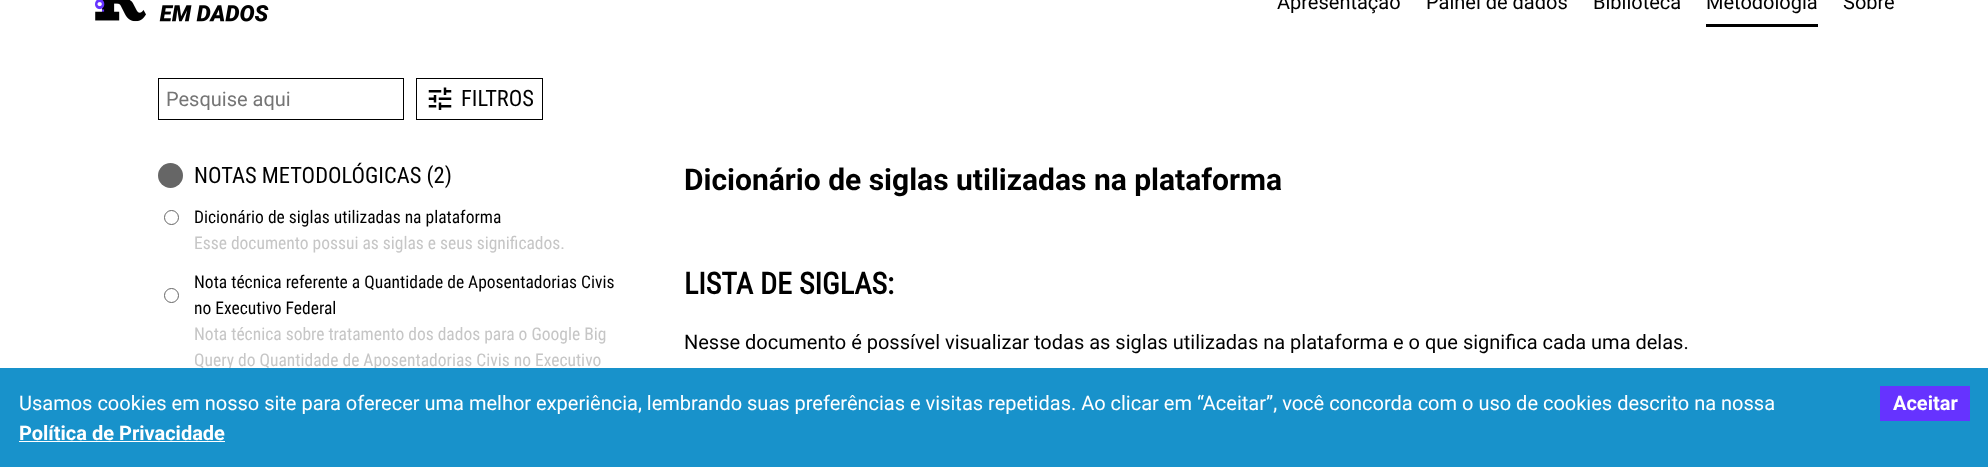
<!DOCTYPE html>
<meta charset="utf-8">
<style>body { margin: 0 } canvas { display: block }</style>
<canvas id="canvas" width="1988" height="467"></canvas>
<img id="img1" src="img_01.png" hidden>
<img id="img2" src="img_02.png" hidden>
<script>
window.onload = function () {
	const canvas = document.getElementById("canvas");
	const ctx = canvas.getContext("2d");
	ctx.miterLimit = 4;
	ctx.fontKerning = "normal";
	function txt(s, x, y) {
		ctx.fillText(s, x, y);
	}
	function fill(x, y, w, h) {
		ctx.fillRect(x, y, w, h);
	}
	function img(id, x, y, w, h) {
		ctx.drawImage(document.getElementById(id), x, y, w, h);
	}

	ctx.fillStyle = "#FFFFFF";
	fill(0, 0, 1988, 467);
	img("img1", 95, 0, 174, 22);
	ctx.fillStyle = "#000000";
	fill(1706, 24, 112, 3);
	ctx.strokeStyle = "#000000";
	ctx.strokeRect(158.5, 78.5, 245, 41);
	ctx.strokeRect(416.5, 78.5, 126, 41);
	img("img2", 428, 87, 24, 23);
	ctx.fillStyle = "#666666";
	ctx.beginPath();
	ctx.arc(170.5, 175.5, 12.5, 0, Math.PI * 2);
	ctx.fill();
	ctx.beginPath();
	ctx.arc(171.5, 217.5, 7, 0, Math.PI * 2);
	ctx.strokeStyle = "#666666";
	ctx.stroke();
	ctx.beginPath();
	ctx.arc(171.5, 295.5, 7, 0, Math.PI * 2);
	ctx.stroke();
	ctx.font = "20px Roboto";
	ctx.fillStyle = "#000000";
	txt("Apresentação", 1277, 9);
	txt("Painel de dados", 1426, 9);
	txt("Biblioteca", 1593, 9);
	txt("Metodologia", 1706, 9);
	txt("Sobre", 1843, 9);
	ctx.fillStyle = "#757575";
	txt("Pesquise aqui", 166, 106);
	ctx.font = "22.5px Roboto Condensed";
	ctx.fillStyle = "#000000";
	txt("FILTROS", 461, 106);
	txt("NOTAS METODOLÓGICAS (2)", 194, 183);
	ctx.font = "17.5px Roboto Condensed";
	txt("Dicionário de siglas utilizadas na plataforma", 194, 223);
	ctx.fillStyle = "#C6C6C6";
	txt("Esse documento possui as siglas e seus significados.", 194, 249);
	ctx.fillStyle = "#000000";
	txt("Nota técnica referente a Quantidade de Aposentadorias Civis", 194, 288);
	txt("no Executivo Federal", 194, 314);
	ctx.fillStyle = "#C6C6C6";
	txt("Nota técnica sobre tratamento dos dados para o Google Big", 194, 340);
	txt("Query do Quantidade de Aposentadorias Civis no Executivo", 194, 366);
	ctx.font = "bold 30px Roboto";
	ctx.fillStyle = "#000000";
	txt("Dicionário de siglas utilizadas na plataforma", 684, 190);
	ctx.font = "bold 30px Roboto Condensed";
	txt("LISTA DE SIGLAS:", 684, 294);
	ctx.font = "20px Roboto";
	txt("Nesse documento é possível visualizar todas as siglas utilizadas na plataforma e o que significa cada uma delas.", 684, 349);
	ctx.fillStyle = "#1892CB";
	fill(0, 368, 1988, 99);
	ctx.fillStyle = "#FFFFFF";
	txt("Usamos cookies em nosso site para oferecer uma melhor experiência, lembrando suas preferências e visitas repetidas. Ao clicar em “Aceitar”, você concorda com o uso de cookies descrito na nossa", 19, 410);
	ctx.font = "bold 20px Roboto";
	txt("Política de Privacidade", 19, 440);
	fill(19, 441, 206, 1);
	ctx.fillStyle = "#6633FF";
	fill(1880, 386, 90, 35);
	ctx.fillStyle = "#FFFFFF";
	txt("Aceitar", 1893, 410);
};
</script>
